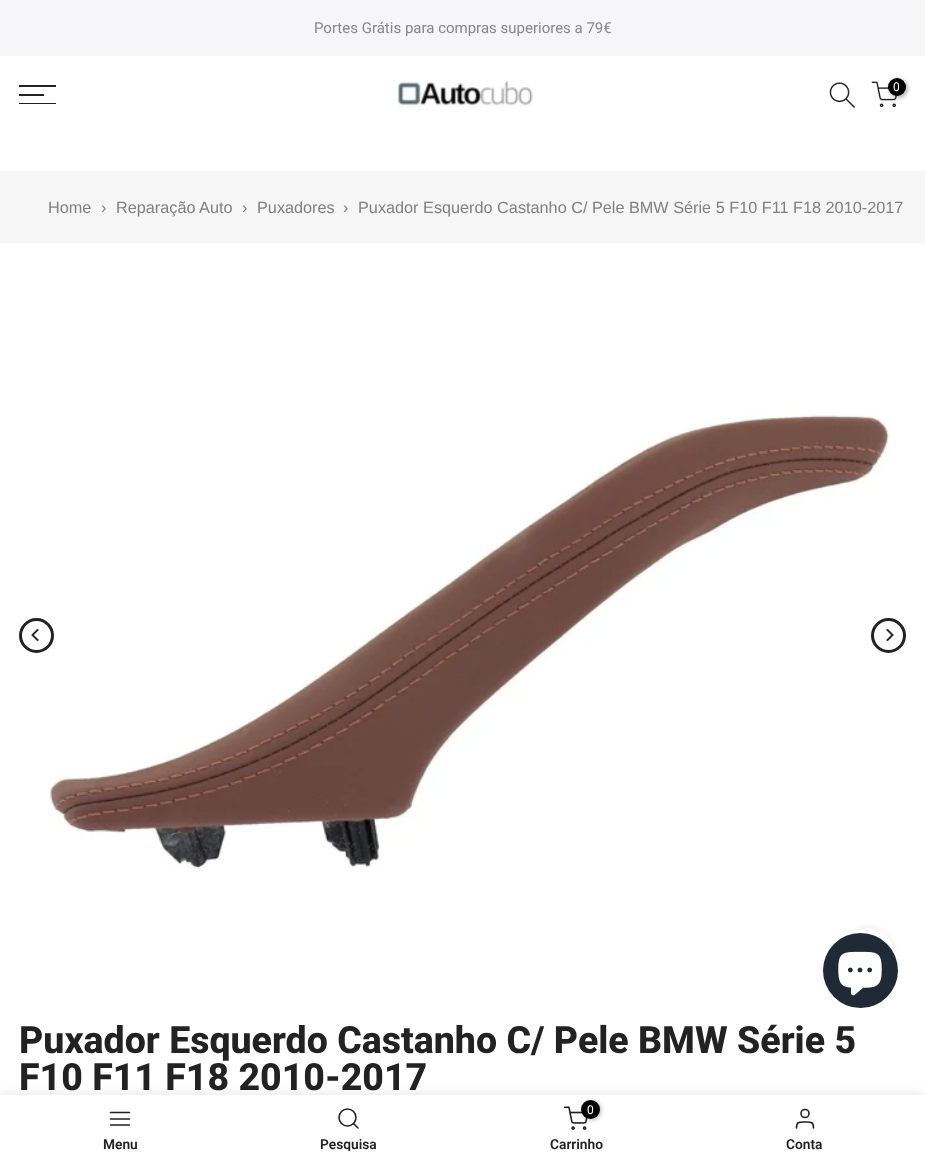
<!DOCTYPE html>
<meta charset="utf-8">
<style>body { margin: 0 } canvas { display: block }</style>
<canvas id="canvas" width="925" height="1163"></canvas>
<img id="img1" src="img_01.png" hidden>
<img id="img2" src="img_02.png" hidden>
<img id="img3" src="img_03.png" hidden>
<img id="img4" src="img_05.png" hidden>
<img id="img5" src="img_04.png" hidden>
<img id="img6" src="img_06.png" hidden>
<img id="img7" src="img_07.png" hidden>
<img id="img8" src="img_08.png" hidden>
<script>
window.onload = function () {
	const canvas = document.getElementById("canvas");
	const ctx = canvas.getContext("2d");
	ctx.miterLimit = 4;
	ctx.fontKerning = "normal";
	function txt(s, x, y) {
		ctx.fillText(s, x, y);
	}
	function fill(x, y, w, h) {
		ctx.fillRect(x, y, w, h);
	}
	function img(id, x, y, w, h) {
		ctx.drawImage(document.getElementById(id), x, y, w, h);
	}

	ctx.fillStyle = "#FFFFFF";
	fill(0, 0, 925, 1163);
	ctx.fillStyle = "#F6F6F8";
	fill(0, 0, 925, 56);
	ctx.fillStyle = "#222222";
	fill(19, 85, 37, 2);
	fill(19, 94, 25, 2);
	fill(19, 103, 37, 1);
	img("img1", 397, 80, 136, 30);
	img("img2", 829, 82, 26, 26);
	img("img3", 871, 81, 26, 27);
	ctx.fillStyle = "rgba(0, 0, 0, 0.3)";
	ctx.filter = "blur(2px)";
	ctx.beginPath();
	ctx.roundRect(889, 79, 19, 19, 9.5);
	ctx.fill();
	ctx.filter = "none";
	ctx.fillStyle = "#000000";
	ctx.beginPath();
	ctx.arc(897, 87, 9, 0, Math.PI * 2);
	ctx.fill();
	ctx.fillStyle = "#F6F6F6";
	fill(0, 171, 925, 72);
	img("img4", 49, 413, 842, 456);
	ctx.beginPath();
	ctx.arc(36.5, 635.5, 16, 0, Math.PI * 2);
	ctx.strokeStyle = "#222222";
	ctx.lineWidth = 3;
	ctx.stroke();
	img("img5", 31, 629, 8, 12);
	ctx.beginPath();
	ctx.arc(888.5, 635.5, 16, 0, Math.PI * 2);
	ctx.stroke();
	img("img6", 886, 629, 8, 12);
	ctx.fillStyle = "rgba(0, 0, 0, 0.09)";
	ctx.filter = "blur(3px)";
	ctx.beginPath();
	ctx.roundRect(844, 928, 50, 50, 25);
	ctx.fill();
	ctx.filter = "none";
	ctx.fillStyle = "#FFFFFF";
	ctx.beginPath();
	ctx.arc(869, 953, 25, 0, Math.PI * 2);
	ctx.fill();
	ctx.fillStyle = "#202A36";
	ctx.beginPath();
	ctx.arc(860.5, 970.5, 37.5, 0, Math.PI * 2);
	ctx.fill();
	img("img7", 838, 951, 44, 45);
	ctx.fillStyle = "rgba(0, 0, 0, 0.12)";
	ctx.filter = "blur(5.5px)";
	ctx.beginPath();
	ctx.rect(0, 1095, 925, 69);
	ctx.fill();
	ctx.filter = "none";
	ctx.fillStyle = "#FFFFFF";
	fill(0, 1095, 925, 68);
	ctx.beginPath();
	ctx.moveTo(110.5, 1119);
	ctx.lineTo(129.5, 1119);
	ctx.moveTo(110.5, 1112.5);
	ctx.lineTo(129.5, 1112.5);
	ctx.moveTo(110.5, 1125);
	ctx.lineTo(129.5, 1125);
	ctx.lineWidth = 1.6;
	ctx.lineCap = "round";
	ctx.lineJoin = "round";
	ctx.stroke();
	ctx.beginPath();
	ctx.arc(347.5, 1117.5, 8.5, 0, Math.PI * 2);
	ctx.stroke();
	ctx.beginPath();
	ctx.moveTo(358, 1128);
	ctx.lineTo(353.5, 1123.5);
	ctx.stroke();
	img("img8", 564, 1106, 24, 24);
	ctx.fillStyle = "rgba(0, 0, 0, 0.3)";
	ctx.filter = "blur(2px)";
	ctx.beginPath();
	ctx.roundRect(583, 1101, 18, 19, 9);
	ctx.fill();
	ctx.filter = "none";
	ctx.fillStyle = "#000000";
	ctx.beginPath();
	ctx.arc(590.5, 1109.5, 9.5, 0, Math.PI * 2);
	ctx.fill();
	ctx.beginPath();
	ctx.arc(805, 1113.5, 4, 0, Math.PI * 2);
	ctx.stroke();
	ctx.beginPath();
	ctx.moveTo(813.5, 1128);
	ctx.bezierCurveTo(813.5, 1121.5, 811, 1122, 805, 1122);
	ctx.bezierCurveTo(799, 1122, 796.5, 1121.5, 796.5, 1128);
	ctx.stroke();
	ctx.font = "15px Roboto";
	ctx.fillStyle = "#878787";
	txt("Portes Grátis para compras superiores a 79€", 314, 33);
	ctx.font = "12px Roboto";
	ctx.fillStyle = "#FFFFFF";
	txt("0", 893, 91);
	ctx.font = "16.25px Liberation Sans";
	ctx.fillStyle = "#808080";
	txt("Home", 48, 213);
	txt("›", 101, 213);
	txt("Reparação Auto", 116, 213);
	txt("›", 242, 213);
	txt("Puxadores", 257, 213);
	txt("›", 343, 213);
	txt("Puxador Esquerdo Castanho C/ Pele BMW Série 5 F10 F11 F18 2010-2017", 358, 213);
	ctx.font = "800 37.5px Roboto";
	ctx.fillStyle = "#222222";
	txt("Puxador Esquerdo Castanho C/ Pele BMW Série 5", 19, 1053);
	txt("F10 F11 F18 2010-2017", 19, 1090);
	ctx.font = "600 13.75px Roboto";
	txt("Menu", 103, 1149);
	ctx.save();
	ctx.beginPath();
	ctx.rect(248, 1138, 202, 13);
	ctx.clip();
	txt("Pesquisa", 320, 1149);
	ctx.restore();
	ctx.font = "12px Roboto";
	ctx.fillStyle = "#FFFFFF";
	txt("0", 587, 1114);
	ctx.font = "600 13.75px Roboto";
	ctx.fillStyle = "#222222";
	txt("Carrinho", 550, 1149);
	txt("Conta", 786, 1149);
};
</script>
